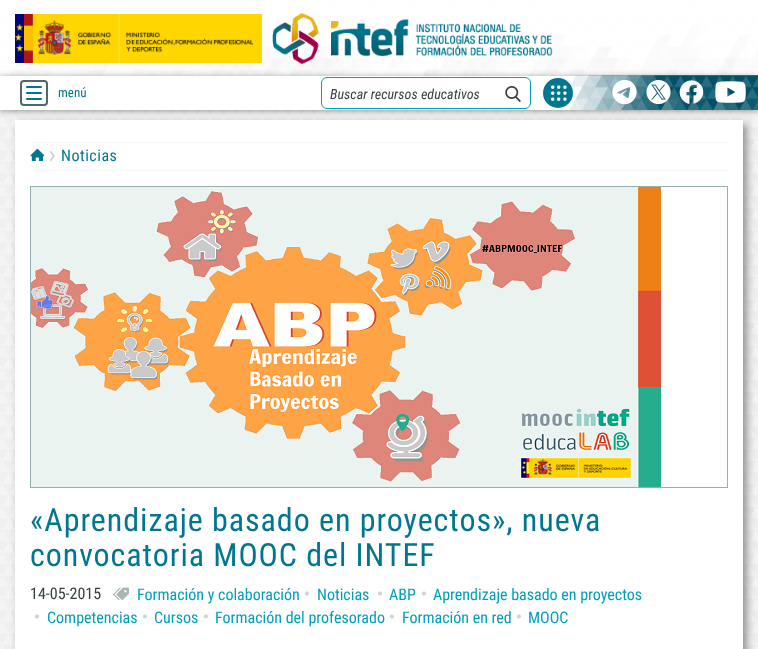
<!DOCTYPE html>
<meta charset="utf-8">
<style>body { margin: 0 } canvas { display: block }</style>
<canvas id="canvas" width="758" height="649"></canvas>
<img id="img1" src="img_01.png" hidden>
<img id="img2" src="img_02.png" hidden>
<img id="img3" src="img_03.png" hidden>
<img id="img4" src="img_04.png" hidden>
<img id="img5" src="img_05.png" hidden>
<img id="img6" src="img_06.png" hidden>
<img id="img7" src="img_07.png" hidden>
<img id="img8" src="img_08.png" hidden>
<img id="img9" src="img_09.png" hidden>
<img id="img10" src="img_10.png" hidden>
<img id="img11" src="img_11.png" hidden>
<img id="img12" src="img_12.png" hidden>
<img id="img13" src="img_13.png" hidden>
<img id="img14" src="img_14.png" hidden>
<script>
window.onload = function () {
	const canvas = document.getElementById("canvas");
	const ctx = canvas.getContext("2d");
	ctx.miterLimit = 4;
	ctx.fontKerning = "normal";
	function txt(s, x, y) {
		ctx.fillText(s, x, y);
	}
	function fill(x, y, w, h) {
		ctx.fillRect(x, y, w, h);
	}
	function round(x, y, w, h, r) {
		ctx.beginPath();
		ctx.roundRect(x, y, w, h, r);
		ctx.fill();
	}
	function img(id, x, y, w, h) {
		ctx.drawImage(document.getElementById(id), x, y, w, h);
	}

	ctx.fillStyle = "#FFFFFF";
	fill(0, 0, 758, 649);
	img("img1", 0, 0, 758, 649);
	img("img2", 0, 0, 758, 76);
	ctx.fillStyle = "rgba(0, 0, 0, 0.4)";
	ctx.filter = "blur(4px)";
	ctx.beginPath();
	ctx.rect(19, 124, 728, 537);
	ctx.fill();
	ctx.filter = "none";
	ctx.fillStyle = "#FFFFFF";
	fill(15, 120, 728, 529);
	ctx.fillStyle = "rgba(0, 0, 0, 0.4)";
	ctx.filter = "blur(3px)";
	ctx.beginPath();
	ctx.rect(0, 77, 758, 34);
	ctx.fill();
	ctx.filter = "none";
	ctx.fillStyle = "#FFFFFF";
	fill(0, 76, 758, 34);
	ctx.beginPath();
	ctx.roundRect(21, 81, 26, 24, 3);
	ctx.strokeStyle = "#526668";
	ctx.lineWidth = 2;
	ctx.stroke();
	ctx.fillStyle = "#007691";
	round(26, 86, 16, 2, 1);
	round(26, 92, 16, 2, 1);
	round(26, 98, 16, 2, 1);
	img("img3", 569, 75, 189, 35);
	img("img4", 612, 79, 25, 26);
	img("img5", 646, 80, 25, 25);
	img("img6", 679, 80, 25, 24);
	img("img7", 715, 81, 31, 22);
	img("img8", 15, 14, 247, 49);
	img("img9", 272, 12, 281, 52);
	ctx.beginPath();
	ctx.roundRect(321.5, 77.5, 209, 31, 5.5);
	ctx.strokeStyle = "#00A0BA";
	ctx.lineWidth = 1;
	ctx.stroke();
	img("img10", 505, 86, 16, 16);
	ctx.beginPath();
	ctx.arc(558, 93, 15, 0, Math.PI * 2);
	ctx.fill();
	ctx.beginPath();
	ctx.moveTo(30, 142.5);
	ctx.lineTo(728, 142.5);
	ctx.strokeStyle = "#EBEDED";
	ctx.setLineDash([1, 1]);
	ctx.stroke();
	ctx.beginPath();
	ctx.moveTo(30, 170.5);
	ctx.lineTo(728, 170.5);
	ctx.stroke();
	img("img11", 30, 149, 15, 12);
	img("img12", 50, 151, 5, 11);
	ctx.strokeStyle = "#97AFB2";
	ctx.setLineDash([]);
	ctx.strokeRect(30.5, 186.5, 697, 301);
	img("img13", 31, 187, 630, 300);
	img("img14", 113, 587, 16, 14);
	ctx.font = "13px Roboto Condensed";
	txt("menú", 58, 97);
	ctx.font = "italic 14px Roboto Condensed";
	ctx.fillStyle = "#353E3E";
	txt("Buscar recursos educativos", 330, 99);
	ctx.letterSpacing = "-1.5px";
	ctx.font = "16px Roboto Condensed";
	ctx.fillStyle = "#FFFFFF";
	txt("• • •", 550, 93);
	txt("• • •", 550, 99);
	txt("• • •", 550, 105);
	ctx.letterSpacing = "0.5px";
	ctx.fillStyle = "#007691";
	txt("Noticias", 61, 161);
	ctx.letterSpacing = "0.95px";
	ctx.font = "32px Roboto Condensed";
	txt("«Aprendizaje basado en proyectos», nueva", 30, 531);
	txt("convocatoria MOOC del INTEF", 30, 566);
	ctx.letterSpacing = "0px";
	ctx.font = "16px Roboto Condensed";
	ctx.fillStyle = "#353E3E";
	txt("14-05-2015", 30, 599);
	ctx.fillStyle = "#00A0BA";
	txt("Formación y colaboración", 137, 600);
	ctx.font = "500 16px Encode Sans";
	ctx.fillStyle = "#CFD6D6";
	txt("•", 304, 598);
	ctx.font = "16px Roboto Condensed";
	ctx.fillStyle = "#00A0BA";
	txt("Noticias", 317, 600);
	ctx.font = "500 16px Encode Sans";
	ctx.fillStyle = "#CFD6D6";
	txt("•", 377, 598);
	ctx.font = "16px Roboto Condensed";
	ctx.fillStyle = "#00A0BA";
	txt("ABP", 389, 600);
	ctx.font = "500 16px Encode Sans";
	ctx.fillStyle = "#CFD6D6";
	txt("•", 421, 598);
	ctx.font = "16px Roboto Condensed";
	ctx.fillStyle = "#00A0BA";
	txt("Aprendizaje basado en proyectos", 433, 600);
	ctx.font = "500 16px Encode Sans";
	ctx.fillStyle = "#CFD6D6";
	txt("•", 34, 621);
	ctx.font = "16px Roboto Condensed";
	ctx.fillStyle = "#00A0BA";
	txt("Competencias", 47, 623);
	ctx.font = "500 16px Encode Sans";
	ctx.fillStyle = "#CFD6D6";
	txt("•", 142, 621);
	ctx.font = "16px Roboto Condensed";
	ctx.fillStyle = "#00A0BA";
	txt("Cursos", 154, 623);
	ctx.font = "500 16px Encode Sans";
	ctx.fillStyle = "#CFD6D6";
	txt("•", 203, 621);
	ctx.font = "16px Roboto Condensed";
	ctx.fillStyle = "#00A0BA";
	txt("Formación del profesorado", 215, 623);
	ctx.font = "500 16px Encode Sans";
	ctx.fillStyle = "#CFD6D6";
	txt("•", 389, 621);
	ctx.font = "16px Roboto Condensed";
	ctx.fillStyle = "#00A0BA";
	txt("Formación en red", 402, 623);
	ctx.font = "500 16px Encode Sans";
	ctx.fillStyle = "#CFD6D6";
	txt("•", 516, 621);
	ctx.font = "16px Roboto Condensed";
	ctx.fillStyle = "#00A0BA";
	txt("MOOC", 528, 623);
};
</script>
